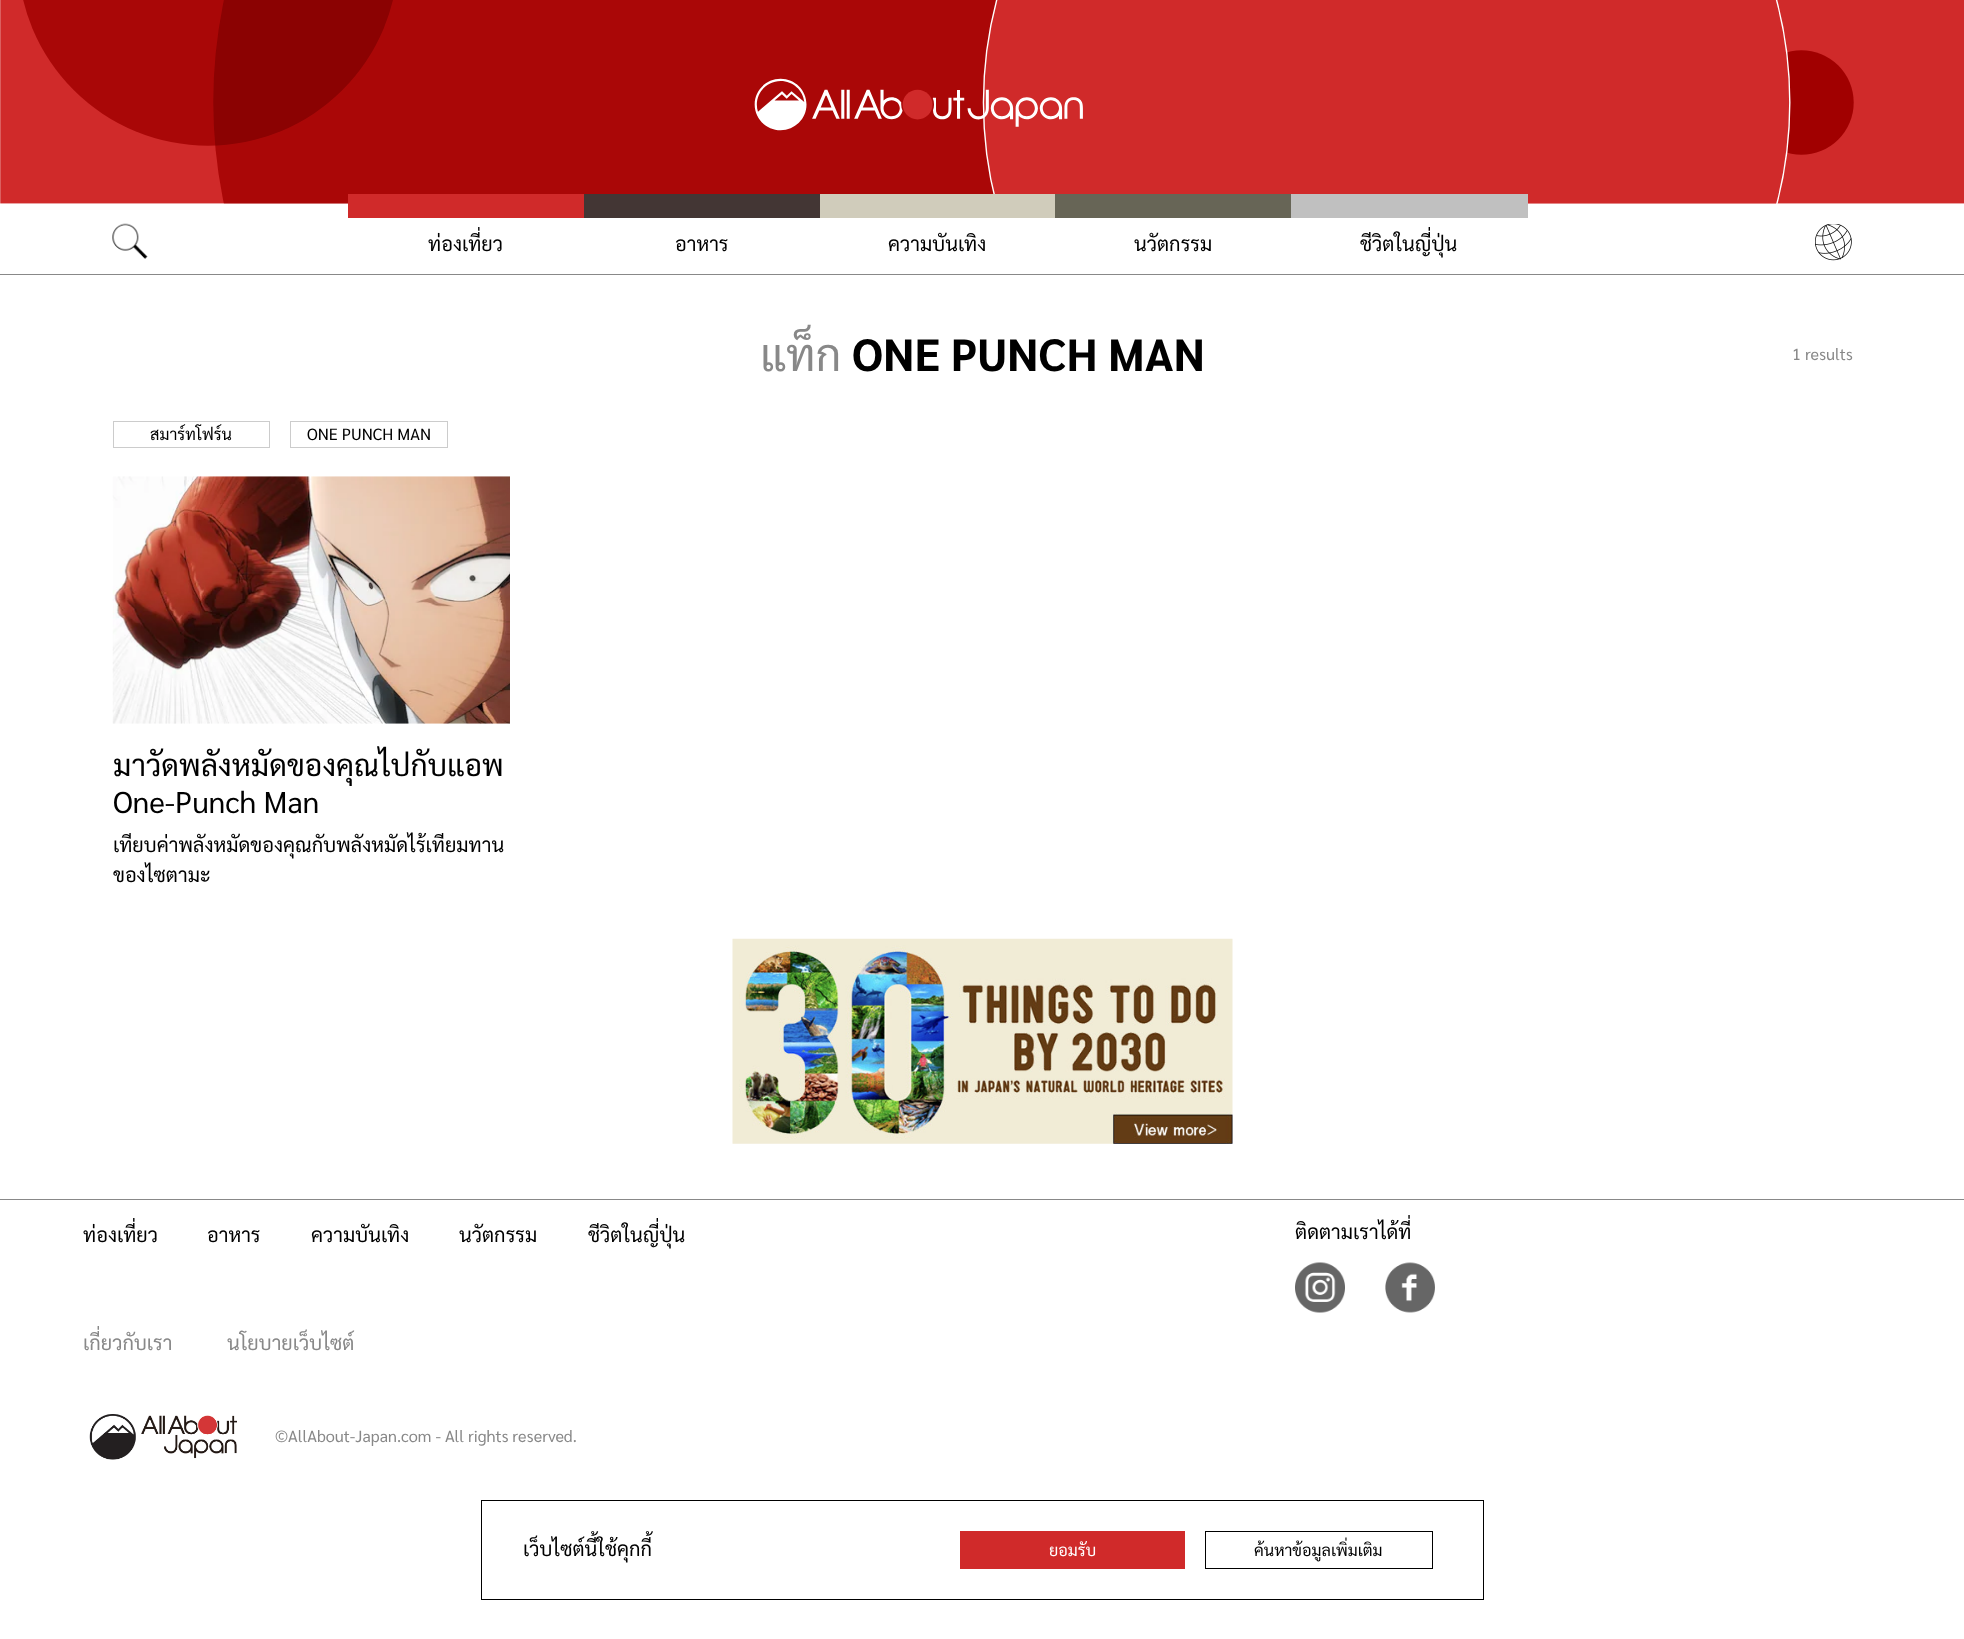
<!DOCTYPE html>
<meta charset="utf-8">
<style>body { margin: 0 } canvas { display: block }</style>
<canvas id="canvas" width="1964" height="1639"></canvas>
<img id="img1" src="img_01.png" hidden>
<img id="img2" src="img_02.png" hidden>
<img id="img3" src="img_03.png" hidden>
<img id="img4" src="img_04.png" hidden>
<img id="img5" src="img_05.png" hidden>
<img id="img6" src="img_06.png" hidden>
<img id="img7" src="img_07.png" hidden>
<img id="img8" src="img_08.png" hidden>
<script>
window.onload = function () {
	const canvas = document.getElementById("canvas");
	const ctx = canvas.getContext("2d");
	ctx.miterLimit = 4;
	ctx.fontKerning = "normal";
	function txt(s, x, y) {
		ctx.fillText(s, x, y);
	}
	function fill(x, y, w, h) {
		ctx.fillRect(x, y, w, h);
	}
	function img(id, x, y, w, h) {
		ctx.drawImage(document.getElementById(id), x, y, w, h);
	}

	ctx.fillStyle = "#FFFFFF";
	fill(0, 0, 1964, 1639);
	ctx.fillStyle = "#888888";
	fill(0, 274, 1964, 1);
	img("img1", 0, 0, 1964, 204);
	img("img2", 112, 223, 36, 36);
	ctx.fillStyle = "#D02A2A";
	fill(348, 194, 236, 24);
	ctx.fillStyle = "#433634";
	fill(584, 194, 236, 24);
	ctx.fillStyle = "#D0CCBB";
	fill(820, 194, 235, 24);
	ctx.fillStyle = "#676556";
	fill(1055, 194, 236, 24);
	ctx.fillStyle = "#C0C0C0";
	fill(1291, 194, 237, 24);
	img("img3", 1815, 224, 37, 37);
	ctx.strokeStyle = "#CCCCCC";
	ctx.strokeRect(113.5, 421.5, 156, 26);
	ctx.strokeRect(290.5, 421.5, 157, 26);
	img("img4", 112, 476, 398, 248);
	img("img5", 732, 938, 501, 206);
	ctx.fillStyle = "#888888";
	fill(0, 1199, 1964, 1);
	img("img6", 1295, 1262, 50, 51);
	img("img7", 1385, 1262, 50, 51);
	img("img8", 89, 1414, 148, 46);
	ctx.strokeStyle = "#000000";
	ctx.strokeRect(481.5, 1500.5, 1002, 99);
	ctx.fillStyle = "#D02A2A";
	fill(960, 1531, 225, 38);
	ctx.strokeRect(1205.5, 1531.5, 227, 37);
	ctx.font = "20px Sarabun";
	ctx.fillStyle = "#000000";
	txt("ท่องเที่ยว", 428, 251);
	txt("อาหาร", 675, 251);
	txt("ความบันเทิง", 888, 251);
	txt("นวัตกรรม", 1134, 251);
	txt("ชีวิตในญี่ปุ่น", 1360, 251);
	ctx.font = "45px Sarabun";
	ctx.fillStyle = "#888888";
	txt("แท็ก", 760, 371);
	ctx.font = "bold 45px Sarabun";
	ctx.fillStyle = "#000000";
	txt("ONE PUNCH MAN", 852, 371);
	ctx.font = "16.25px Sarabun";
	ctx.fillStyle = "#888888";
	txt("1 results", 1792, 360);
	ctx.fillStyle = "#000000";
	txt("สมาร์ทโฟร์น", 150, 440);
	txt("ONE PUNCH MAN", 307, 440);
	ctx.font = "30px Sarabun";
	txt("มาวัดพลังหมัดของคุณไปกับแอพ", 113, 776);
	txt("One-Punch Man", 113, 813);
	ctx.save();
	ctx.beginPath();
	ctx.rect(113, 829, 397, 60);
	ctx.clip();
	ctx.font = "20px Sarabun";
	txt("เทียบค่าพลังหมัดของคุณกับพลังหมัดไร้เทียมทาน", 113, 852);
	ctx.restore();
	ctx.font = "20px Sarabun";
	txt("ของไซตามะ", 113, 882);
	txt("ท่องเที่ยว", 83, 1242);
	txt("อาหาร", 207, 1242);
	txt("ความบันเทิง", 311, 1242);
	txt("นวัตกรรม", 459, 1242);
	txt("ชีวิตในญี่ปุ่น", 588, 1242);
	txt("ติดตามเราได้ที่", 1295, 1239);
	ctx.fillStyle = "#888888";
	txt("เกี่ยวกับเรา", 83, 1350);
	txt("นโยบายเว็บไซต์", 227, 1350);
	ctx.font = "16.25px Sarabun";
	txt("©AllAbout-Japan.com - All rights reserved.", 275, 1442);
	ctx.font = "20px Sarabun";
	ctx.fillStyle = "#000000";
	txt("เว็บไซต์นี้ใช้คุกกี้", 523, 1556);
	ctx.font = "16.25px Sarabun";
	ctx.fillStyle = "#FFFFFF";
	txt("ยอมรับ", 1049, 1556);
	ctx.fillStyle = "#000000";
	txt("ค้นหาข้อมูลเพิ่มเติม", 1254, 1556);
};
</script>
